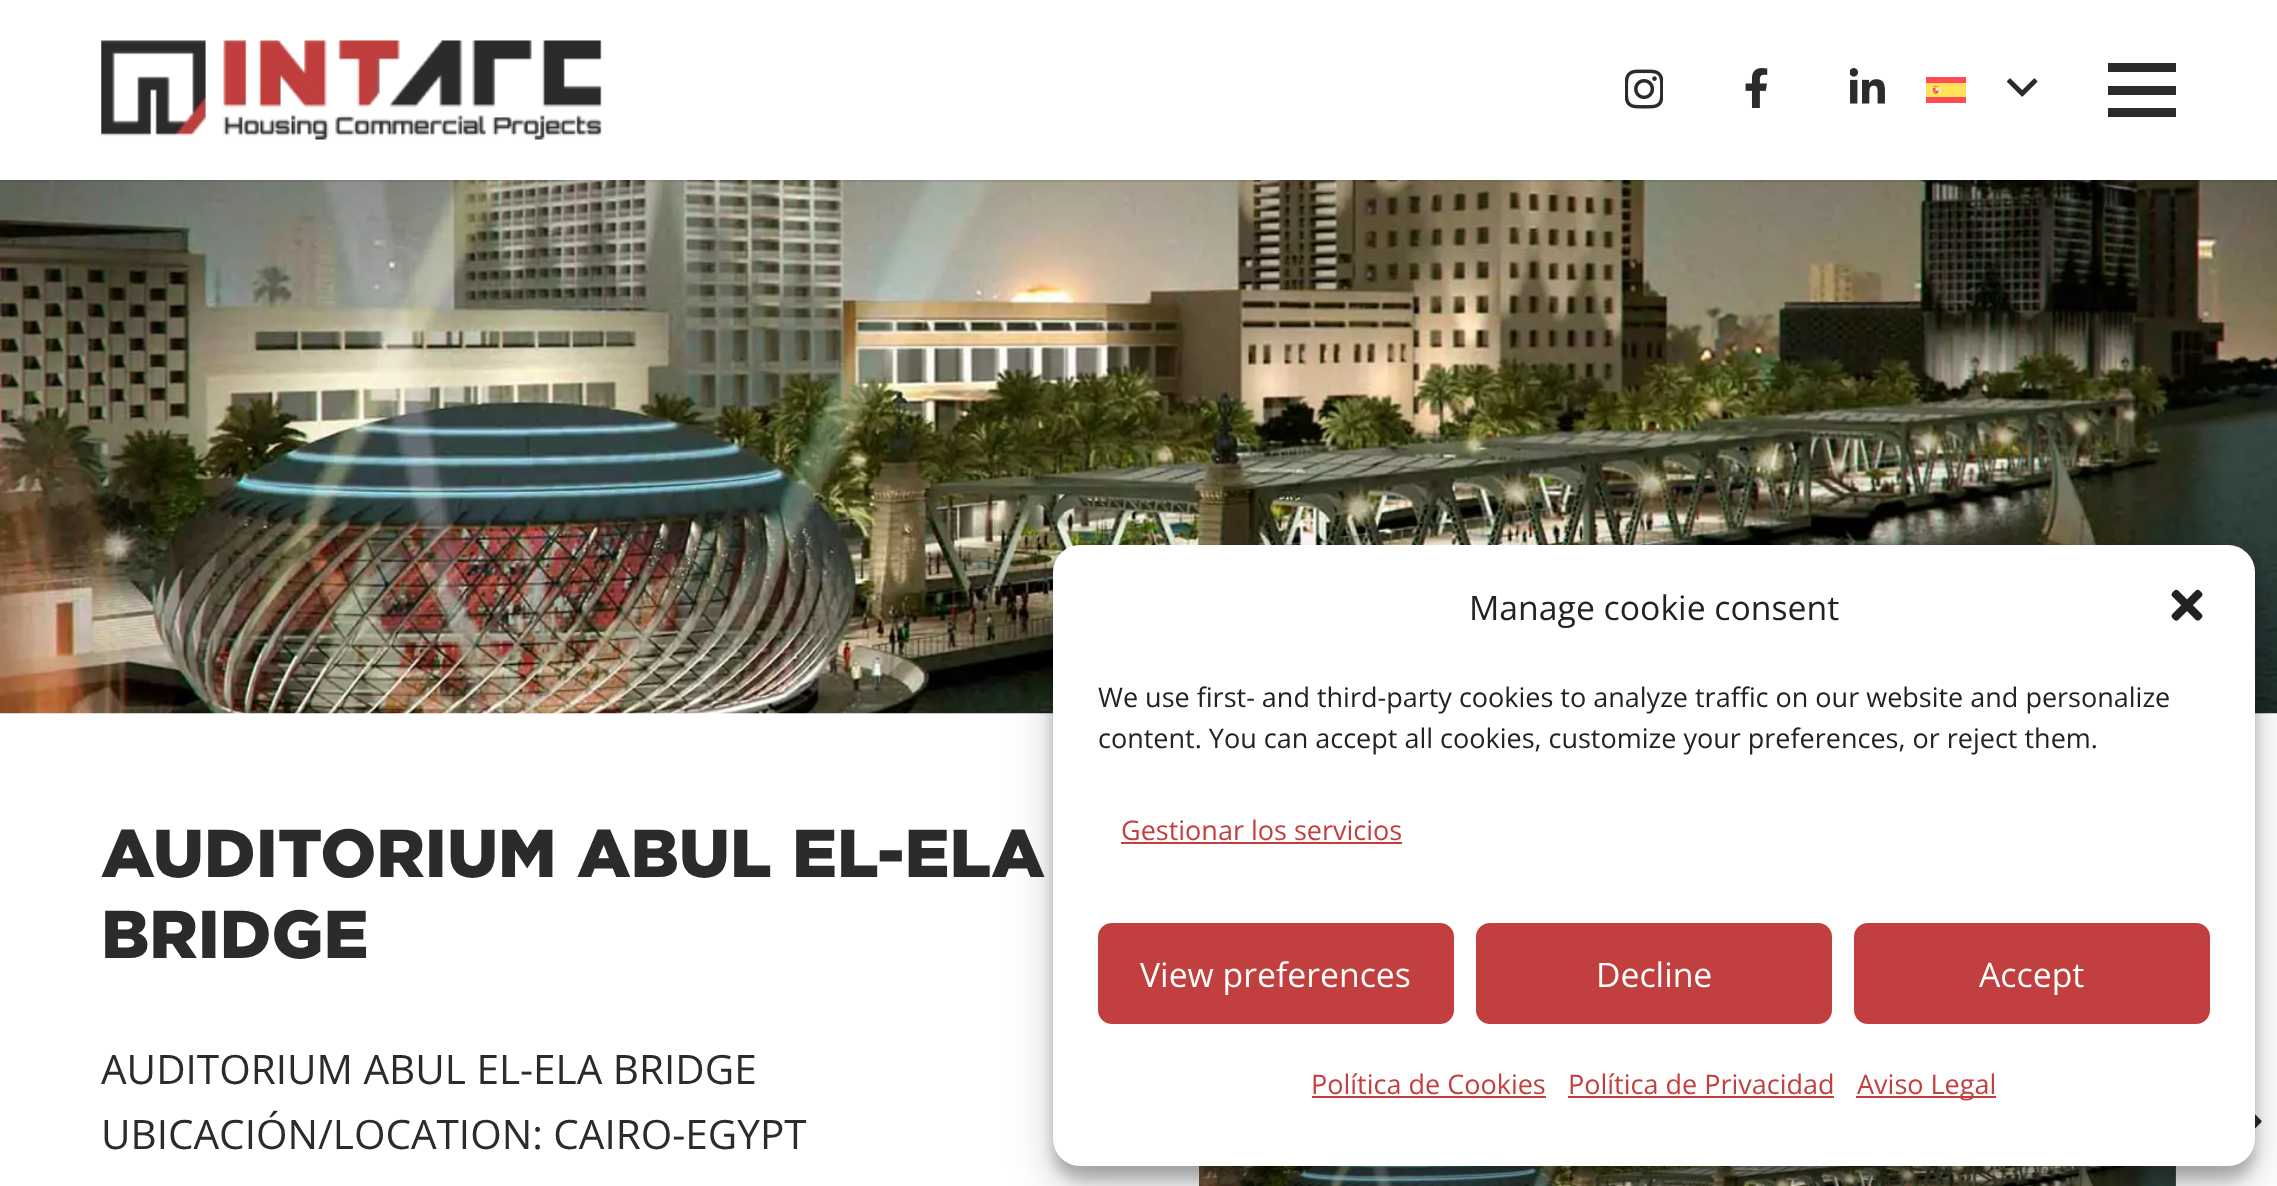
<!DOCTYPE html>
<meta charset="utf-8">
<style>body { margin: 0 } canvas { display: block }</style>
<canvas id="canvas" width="2277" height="1186"></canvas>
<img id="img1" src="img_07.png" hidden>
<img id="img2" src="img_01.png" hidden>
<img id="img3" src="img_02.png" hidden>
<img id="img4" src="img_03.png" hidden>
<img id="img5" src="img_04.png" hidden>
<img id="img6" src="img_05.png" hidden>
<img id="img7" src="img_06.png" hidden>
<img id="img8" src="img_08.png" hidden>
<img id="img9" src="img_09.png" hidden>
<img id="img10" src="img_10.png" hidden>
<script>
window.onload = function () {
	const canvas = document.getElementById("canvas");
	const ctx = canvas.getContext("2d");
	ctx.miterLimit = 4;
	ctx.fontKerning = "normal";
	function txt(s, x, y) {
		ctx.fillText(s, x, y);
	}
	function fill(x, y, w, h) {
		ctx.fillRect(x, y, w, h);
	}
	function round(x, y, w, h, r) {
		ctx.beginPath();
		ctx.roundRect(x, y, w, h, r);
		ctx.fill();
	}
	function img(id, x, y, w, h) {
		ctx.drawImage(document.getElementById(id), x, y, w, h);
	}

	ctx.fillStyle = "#FFFFFF";
	fill(0, 0, 2277, 1186);
	img("img1", 0, 180, 2277, 534);
	ctx.fillStyle = "rgba(0, 0, 0, 0.08)";
	fill(0, 180, 2277, 2);
	img("img2", 101, 40, 501, 100);
	img("img3", 1625, 69, 38, 40);
	img("img4", 1745, 68, 23, 40);
	img("img5", 1850, 68, 35, 36);
	img("img6", 1926, 77, 40, 26);
	img("img7", 2007, 78, 31, 19);
	ctx.fillStyle = "#2B2B2B";
	fill(2108, 86, 68, 9);
	fill(2108, 63, 68, 9);
	fill(2108, 108, 68, 9);
	img("img8", 2255, 1114, 7, 15);
	img("img9", 1199, 1166, 977, 20);
	ctx.fillStyle = "rgba(0, 0, 0, 0.23)";
	ctx.filter = "blur(7px)";
	ctx.beginPath();
	ctx.roundRect(1053, 558, 1202, 621, 27);
	ctx.fill();
	ctx.filter = "none";
	ctx.fillStyle = "rgba(0, 0, 0, 0.19)";
	ctx.filter = "blur(22.5px)";
	ctx.beginPath();
	ctx.roundRect(1053, 567, 1202, 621, 27);
	ctx.fill();
	ctx.filter = "none";
	ctx.fillStyle = "#FFFFFF";
	round(1053, 545, 1202, 621, 27);
	img("img10", 2171, 589, 32, 32);
	ctx.fillStyle = "#C13F3E";
	fill(1121, 842, 281, 2);
	ctx.beginPath();
	ctx.roundRect(1099, 924, 354, 99, 13);
	ctx.fill();
	ctx.strokeStyle = "#C13F3E";
	ctx.lineWidth = 2;
	ctx.stroke();
	ctx.beginPath();
	ctx.roundRect(1477, 924, 354, 99, 13);
	ctx.fill();
	ctx.stroke();
	ctx.beginPath();
	ctx.roundRect(1855, 924, 354, 99, 13);
	ctx.fill();
	ctx.stroke();
	fill(1312, 1096, 234, 2);
	fill(1568, 1096, 266, 2);
	fill(1856, 1096, 140, 2);
	ctx.font = "900 67.5px Gotham";
	ctx.fillStyle = "#2B2B2B";
	txt("AUDITORIUM ABUL EL-ELA", 101, 877);
	txt("BRIDGE", 101, 958);
	ctx.font = "40.5px Open Sans";
	txt("AUDITORIUM ABUL EL-ELA BRIDGE", 101, 1084);
	txt("UBICACIÓN/LOCATION: CAIRO-EGYPT", 101, 1149);
	ctx.font = "33.75px Open Sans";
	ctx.fillStyle = "#222222";
	txt("Manage cookie consent", 1469, 620);
	ctx.font = "27px Open Sans";
	txt("We use first- and third-party cookies to analyze traffic on our website and personalize", 1098, 707);
	txt("content. You can accept all cookies, customize your preferences, or reject them.", 1098, 748);
	ctx.fillStyle = "#C13F3E";
	txt("Gestionar los servicios", 1121, 840);
	ctx.font = "33.75px Open Sans";
	ctx.fillStyle = "#FFFFFF";
	txt("View preferences", 1140, 987);
	txt("Decline", 1596, 987);
	txt("Accept", 1979, 987);
	ctx.font = "27px Open Sans";
	ctx.fillStyle = "#C13F3E";
	txt("Política de Cookies", 1311, 1094);
	txt("Política de Privacidad", 1568, 1094);
	txt("Aviso Legal", 1857, 1094);
};
</script>
